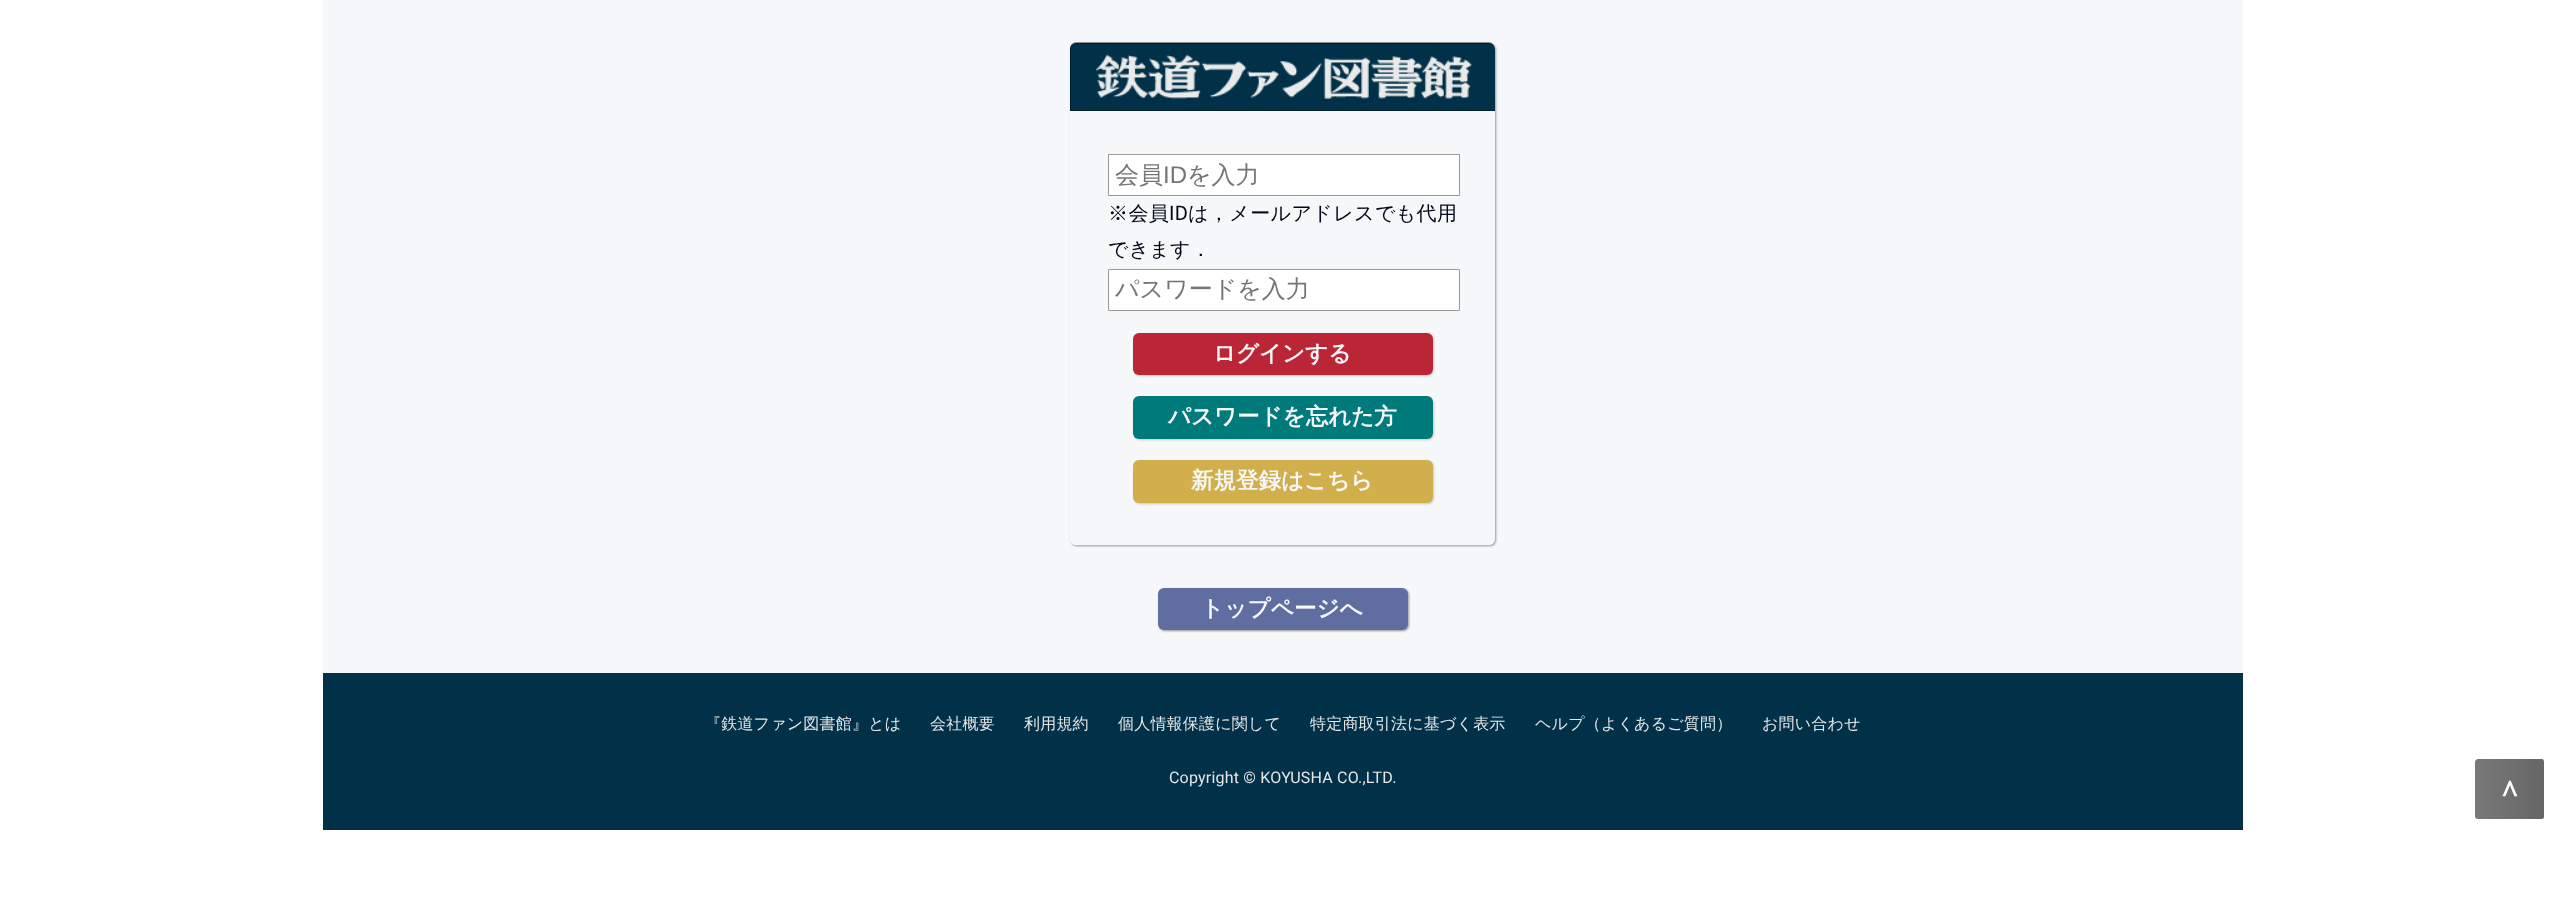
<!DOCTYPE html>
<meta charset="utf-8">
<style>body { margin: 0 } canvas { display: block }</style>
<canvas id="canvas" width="2564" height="923"></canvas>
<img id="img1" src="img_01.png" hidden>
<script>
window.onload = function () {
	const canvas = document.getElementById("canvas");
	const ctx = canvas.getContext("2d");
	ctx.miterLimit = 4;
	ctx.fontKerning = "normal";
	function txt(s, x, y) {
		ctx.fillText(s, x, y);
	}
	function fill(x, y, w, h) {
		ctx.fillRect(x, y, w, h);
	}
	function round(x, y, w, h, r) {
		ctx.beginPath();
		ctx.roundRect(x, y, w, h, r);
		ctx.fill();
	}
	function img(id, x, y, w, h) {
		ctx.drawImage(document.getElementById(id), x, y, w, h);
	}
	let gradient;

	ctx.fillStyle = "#FFFFFF";
	fill(0, 0, 2564, 923);
	ctx.fillStyle = "#F6F7F8";
	fill(323, 0, 1920, 673);
	ctx.save();
	ctx.beginPath();
	ctx.moveTo(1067, 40);
	ctx.lineTo(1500, 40);
	ctx.lineTo(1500, 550);
	ctx.lineTo(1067, 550);
	ctx.closePath();
	ctx.moveTo(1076, 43);
	ctx.lineTo(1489, 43);
	ctx.bezierCurveTo(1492.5, 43, 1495, 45.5, 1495, 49);
	ctx.lineTo(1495, 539);
	ctx.bezierCurveTo(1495, 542.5, 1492.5, 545, 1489, 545);
	ctx.lineTo(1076, 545);
	ctx.bezierCurveTo(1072.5, 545, 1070, 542.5, 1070, 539);
	ctx.lineTo(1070, 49);
	ctx.bezierCurveTo(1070, 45.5, 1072.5, 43, 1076, 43);
	ctx.closePath();
	ctx.clip("evenodd");
	ctx.fillStyle = "rgba(0, 0, 0, 0.4)";
	ctx.filter = "blur(1px)";
	ctx.beginPath();
	ctx.roundRect(1071, 44, 425, 502, 6);
	ctx.fill();
	ctx.filter = "none";
	ctx.restore();
	ctx.fillStyle = "#003149";
	ctx.beginPath();
	ctx.roundRect(1070, 43, 425, 68, [6, 6, 0, 0]);
	ctx.fill();
	ctx.fillStyle = "rgba(0, 0, 0, 0.4)";
	ctx.beginPath();
	ctx.moveTo(1076, 42);
	ctx.lineTo(1489, 42);
	ctx.bezierCurveTo(1492, 42, 1495, 45, 1495, 49);
	ctx.lineTo(1495, 111);
	ctx.lineTo(1070, 111);
	ctx.lineTo(1070, 49);
	ctx.bezierCurveTo(1070, 45, 1073, 42, 1076, 42);
	ctx.closePath();
	ctx.moveTo(1076, 44);
	ctx.lineTo(1489, 44);
	ctx.bezierCurveTo(1492, 44, 1495, 46, 1495, 49);
	ctx.lineTo(1495, 110);
	ctx.lineTo(1071, 110);
	ctx.lineTo(1071, 49);
	ctx.bezierCurveTo(1071, 46, 1073, 44, 1076, 44);
	ctx.closePath();
	ctx.fill("evenodd");
	img("img1", 1095, 54, 377, 45);
	ctx.fillStyle = "#FFFFFF";
	ctx.beginPath();
	ctx.rect(1108.5, 154.5, 351, 41);
	ctx.fill();
	ctx.strokeStyle = "#9A9A9A";
	ctx.stroke();
	ctx.beginPath();
	ctx.rect(1108.5, 269.5, 351, 41);
	ctx.fill();
	ctx.stroke();
	ctx.fillStyle = "rgba(0, 0, 0, 0.2)";
	ctx.filter = "blur(1px)";
	ctx.beginPath();
	ctx.roundRect(1134, 334, 300, 42, 6);
	ctx.fill();
	ctx.filter = "none";
	ctx.fillStyle = "#BA2636";
	round(1133, 333, 300, 42, 6);
	ctx.fillStyle = "rgba(0, 0, 0, 0.2)";
	ctx.filter = "blur(1px)";
	ctx.beginPath();
	ctx.roundRect(1134, 398, 300, 42, 6);
	ctx.fill();
	ctx.filter = "none";
	ctx.fillStyle = "#007A7A";
	round(1133, 396, 300, 43, 6);
	ctx.fillStyle = "rgba(0, 0, 0, 0.2)";
	ctx.filter = "blur(1px)";
	ctx.beginPath();
	ctx.roundRect(1134, 461, 300, 43, 6);
	ctx.fill();
	ctx.filter = "none";
	ctx.fillStyle = "#D0AF4C";
	round(1133, 460, 300, 43, 6);
	ctx.fillStyle = "rgba(0, 0, 0, 0.4)";
	ctx.filter = "blur(1px)";
	ctx.beginPath();
	ctx.roundRect(1159, 589, 250, 42, 6);
	ctx.fill();
	ctx.filter = "none";
	ctx.fillStyle = "#606DA1";
	round(1158, 588, 250, 42, 6);
	ctx.fillStyle = "#003149";
	fill(323, 673, 1920, 157);
	gradient = ctx.createLinearGradient(2475, 789, 2544, 789);
	gradient.addColorStop(0, "#797979");
	gradient.addColorStop(1, "#666666");
	ctx.fillStyle = gradient;
	ctx.beginPath();
	ctx.moveTo(2475, 817);
	ctx.lineTo(2475, 762);
	ctx.bezierCurveTo(2475, 760, 2477, 759, 2478, 759);
	ctx.lineTo(2542, 759);
	ctx.bezierCurveTo(2543, 759, 2544, 760, 2544, 762);
	ctx.lineTo(2544, 817);
	ctx.bezierCurveTo(2544, 818, 2543, 819, 2542, 819);
	ctx.lineTo(2478, 819);
	ctx.bezierCurveTo(2477, 819, 2475, 818, 2475, 817);
	ctx.closePath();
	ctx.fill();
	ctx.font = "500 24px WenQuanYi Zen Hei";
	ctx.fillStyle = "#757575";
	txt("会員", 1115, 183);
	ctx.font = "24px Liberation Sans";
	txt("ID", 1163, 183);
	ctx.font = "500 24px WenQuanYi Zen Hei";
	txt("を入力", 1187, 183);
	ctx.letterSpacing = "0.4px";
	ctx.font = "500 20px WenQuanYi Zen Hei";
	ctx.fillStyle = "#00081A";
	txt("※会員", 1108, 220);
	ctx.font = "20px Roboto";
	txt("ID", 1169, 220);
	ctx.font = "500 20px WenQuanYi Zen Hei";
	txt("は，メールアドレスでも代用", 1188, 220);
	ctx.letterSpacing = "0.2px";
	txt("できます．", 1108, 256);
	ctx.letterSpacing = "0px";
	ctx.font = "500 24px WenQuanYi Zen Hei";
	ctx.fillStyle = "#757575";
	txt("パスワードを入力", 1115, 297);
	ctx.font = "bold 22.5px WenQuanYi Zen Hei";
	ctx.fillStyle = "#F6F7F8";
	txt("ログインする", 1213, 361);
	txt("パスワードを忘れた方", 1168, 424);
	txt("新規登録はこちら", 1191, 488);
	ctx.letterSpacing = "0.2px";
	txt("トップページへ", 1201, 616);
	ctx.font = "500 16px WenQuanYi Zen Hei";
	ctx.fillStyle = "#E6E6E6";
	txt("『鉄道ファン図書館』とは", 705, 729);
	txt("会社概要", 930, 729);
	txt("利用規約", 1024, 729);
	txt("個人情報保護に関して", 1118, 729);
	txt("特定商取引法に基づく表示", 1310, 729);
	txt("ヘルプ（よくあるご質問）", 1535, 729);
	txt("お問い合わせ", 1762, 729);
	ctx.font = "16px Roboto";
	txt("Copyright © KOYUSHA CO.,LTD.", 1169, 783);
	ctx.font = "bold 30px WenQuanYi Zen Hei";
	ctx.fillStyle = "#FFFFFF";
	ctx.save();
	ctx.translate(2519, 804);
	ctx.rotate(-90 * Math.PI / 180);
	ctx.fillText("＞", 0, 0);
	ctx.restore();
};
</script>
